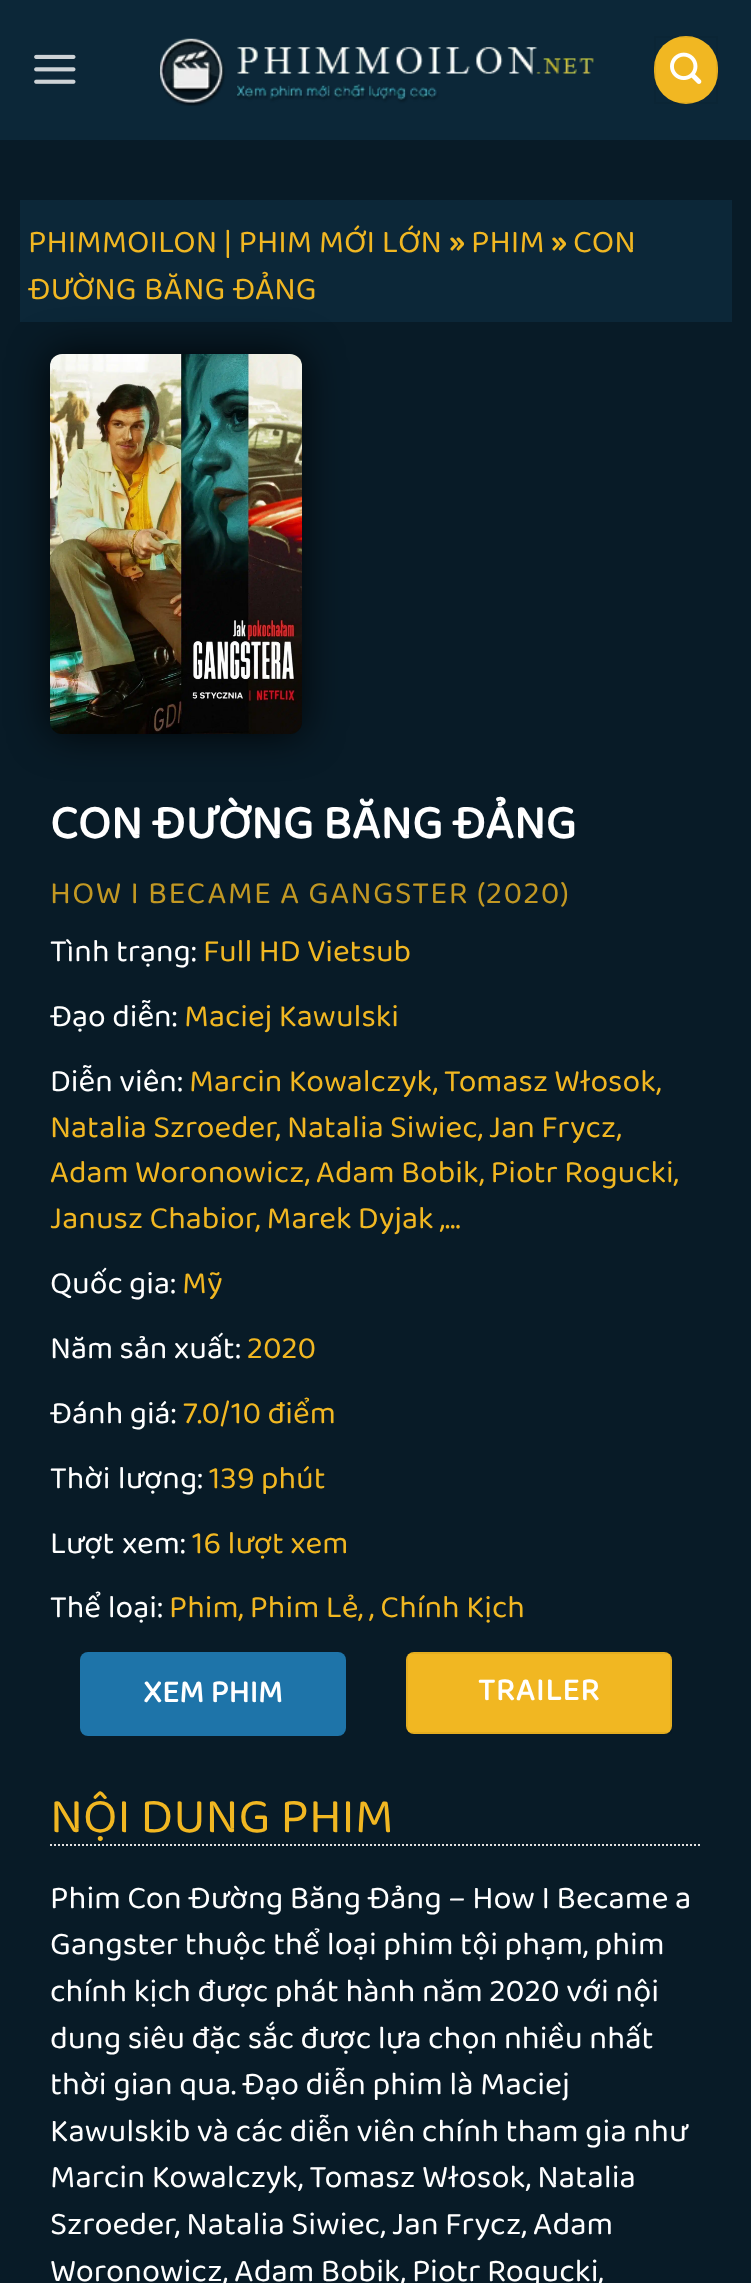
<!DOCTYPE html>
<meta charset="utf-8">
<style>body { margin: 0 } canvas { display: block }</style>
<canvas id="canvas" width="751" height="2283"></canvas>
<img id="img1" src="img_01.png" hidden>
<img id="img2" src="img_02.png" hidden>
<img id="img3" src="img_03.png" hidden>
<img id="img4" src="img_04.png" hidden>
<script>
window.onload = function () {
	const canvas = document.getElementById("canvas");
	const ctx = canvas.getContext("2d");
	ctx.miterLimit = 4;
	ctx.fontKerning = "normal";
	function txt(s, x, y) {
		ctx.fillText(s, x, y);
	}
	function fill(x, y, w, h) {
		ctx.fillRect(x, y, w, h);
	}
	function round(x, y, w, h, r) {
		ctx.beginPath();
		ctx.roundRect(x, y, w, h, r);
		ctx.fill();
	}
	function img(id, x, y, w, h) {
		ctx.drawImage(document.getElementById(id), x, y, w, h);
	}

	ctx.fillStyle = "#081B27";
	fill(0, 0, 751, 2283);
	ctx.fillStyle = "#0C2738";
	fill(0, 0, 751, 140);
	img("img1", 34, 54, 42, 30);
	img("img2", 159, 38, 435, 68);
	ctx.fillStyle = "#F1B722";
	round(654, 36, 64, 68, 32);
	ctx.strokeStyle = "rgba(0, 0, 0, 0.05)";
	ctx.lineWidth = 2;
	ctx.strokeRect(655, 37, 62, 66);
	img("img3", 670, 52, 32, 32);
	ctx.fillStyle = "#0C2738";
	fill(20, 200, 712, 122);
	ctx.fillStyle = "rgba(0, 0, 0, 0.84)";
	ctx.filter = "blur(20px)";
	ctx.beginPath();
	ctx.roundRect(50, 354, 252, 380, 12);
	ctx.fill();
	ctx.filter = "none";
	img("img4", 50, 354, 252, 380);
	ctx.fillStyle = "#1E74A9";
	round(80, 1652, 266, 84, 8);
	ctx.fillStyle = "#F1B722";
	round(406, 1652, 266, 82, 8);
	ctx.strokeRect(407, 1653, 264, 80);
	ctx.beginPath();
	ctx.moveTo(50, 1845);
	ctx.lineTo(702, 1845);
	ctx.strokeStyle = "#E3E3E3";
	ctx.setLineDash([2, 2]);
	ctx.stroke();
	ctx.font = "32.6px 'Baloo Thambi 2'";
	txt("PHIMMOILON | PHIM MỚI LỚN", 28, 252);
	ctx.font = "bold 32.6px 'Baloo Thambi 2'";
	txt("»", 449, 252);
	ctx.font = "32.6px 'Baloo Thambi 2'";
	txt("PHIM", 471, 252);
	ctx.font = "bold 32.6px 'Baloo Thambi 2'";
	txt("»", 551, 252);
	ctx.font = "32.6px 'Baloo Thambi 2'";
	txt("CON", 573, 252);
	ctx.wordSpacing = "1px";
	txt("ĐƯỜNG BĂNG ĐẢNG", 28, 299);
	ctx.wordSpacing = "0px";
	ctx.font = "bold 48px 'Baloo Thambi 2'";
	ctx.fillStyle = "#FFFFFF";
	txt("CON ĐƯỜNG BĂNG ĐẢNG", 50, 838);
	ctx.letterSpacing = "1.35px";
	ctx.font = "32px 'Baloo Thambi 2'";
	ctx.fillStyle = "#C29823";
	txt("HOW I BECAME A GANGSTER (2020)", 50, 903);
	ctx.letterSpacing = "0px";
	ctx.fillStyle = "#FFFFFF";
	txt("Tình trạng:", 50, 961);
	ctx.fillStyle = "#F1B722";
	txt("Full HD Vietsub", 203, 961);
	ctx.fillStyle = "#FFFFFF";
	txt("Đạo diễn:", 50, 1026);
	ctx.fillStyle = "#F1B722";
	txt("Maciej Kawulski", 184, 1026);
	ctx.fillStyle = "#FFFFFF";
	txt("Diễn viên:", 50, 1091);
	ctx.fillStyle = "#F1B722";
	txt("Marcin Kowalczyk, Tomasz Włosok,", 189, 1091);
	txt("Natalia Szroeder, Natalia Siwiec, Jan Frycz,", 50, 1137);
	txt("Adam Woronowicz, Adam Bobik, Piotr Rogucki,", 50, 1182);
	txt("Janusz Chabior, Marek Dyjak ,...", 50, 1228);
	ctx.fillStyle = "#FFFFFF";
	txt("Quốc gia:", 50, 1293);
	ctx.fillStyle = "#F1B722";
	txt("Mỹ", 182, 1293);
	ctx.fillStyle = "#FFFFFF";
	txt("Năm sản xuất:", 50, 1358);
	ctx.fillStyle = "#F1B722";
	txt("2020", 247, 1358);
	ctx.fillStyle = "#FFFFFF";
	txt("Đánh giá:", 50, 1423);
	ctx.fillStyle = "#F1B722";
	txt("7.0/10 điểm", 183, 1423);
	ctx.wordSpacing = "1px";
	ctx.fillStyle = "#FFFFFF";
	txt("Thời lượng:", 50, 1488);
	ctx.wordSpacing = "0px";
	ctx.fillStyle = "#F1B722";
	txt("139 phút", 209, 1488);
	ctx.wordSpacing = "1px";
	ctx.fillStyle = "#FFFFFF";
	txt("Lượt xem:", 50, 1553);
	ctx.wordSpacing = "0px";
	ctx.fillStyle = "#F1B722";
	txt("16 lượt xem", 192, 1553);
	ctx.fillStyle = "#FFFFFF";
	txt("Thể loại:", 50, 1617);
	ctx.fillStyle = "#F1B722";
	txt("Phim, Phim Lẻ, , Chính Kịch", 169, 1617);
	ctx.font = "bold 32px 'Baloo Thambi 2'";
	ctx.fillStyle = "#FFFFFF";
	txt("XEM PHIM", 143, 1702);
	ctx.letterSpacing = "1px";
	txt("TRAILER", 478, 1700);
	ctx.letterSpacing = "0px";
	ctx.font = "50px 'Baloo Thambi 2'";
	ctx.fillStyle = "#F1B722";
	txt("NỘI DUNG PHIM", 50, 1832);
	ctx.font = "32.6px 'Baloo Thambi 2'";
	ctx.fillStyle = "#FFFFFF";
	txt("Phim Con Đường Băng Đảng – How I Became a", 50, 1908);
	txt("Gangster thuộc thể loại phim tội phạm, phim", 50, 1954);
	txt("chính kịch được phát hành năm 2020 với nội", 50, 2001);
	txt("dung siêu đặc sắc được lựa chọn nhiều nhất", 50, 2048);
	txt("thời gian qua. Đạo diễn phim là Maciej", 50, 2094);
	txt("Kawulskib và các diễn viên chính tham gia như", 50, 2141);
	txt("Marcin Kowalczyk, Tomasz Włosok, Natalia", 50, 2187);
	txt("Szroeder, Natalia Siwiec, Jan Frycz, Adam", 50, 2234);
	txt("Woronowicz, Adam Bobik, Piotr Rogucki,", 50, 2281);
};
</script>
